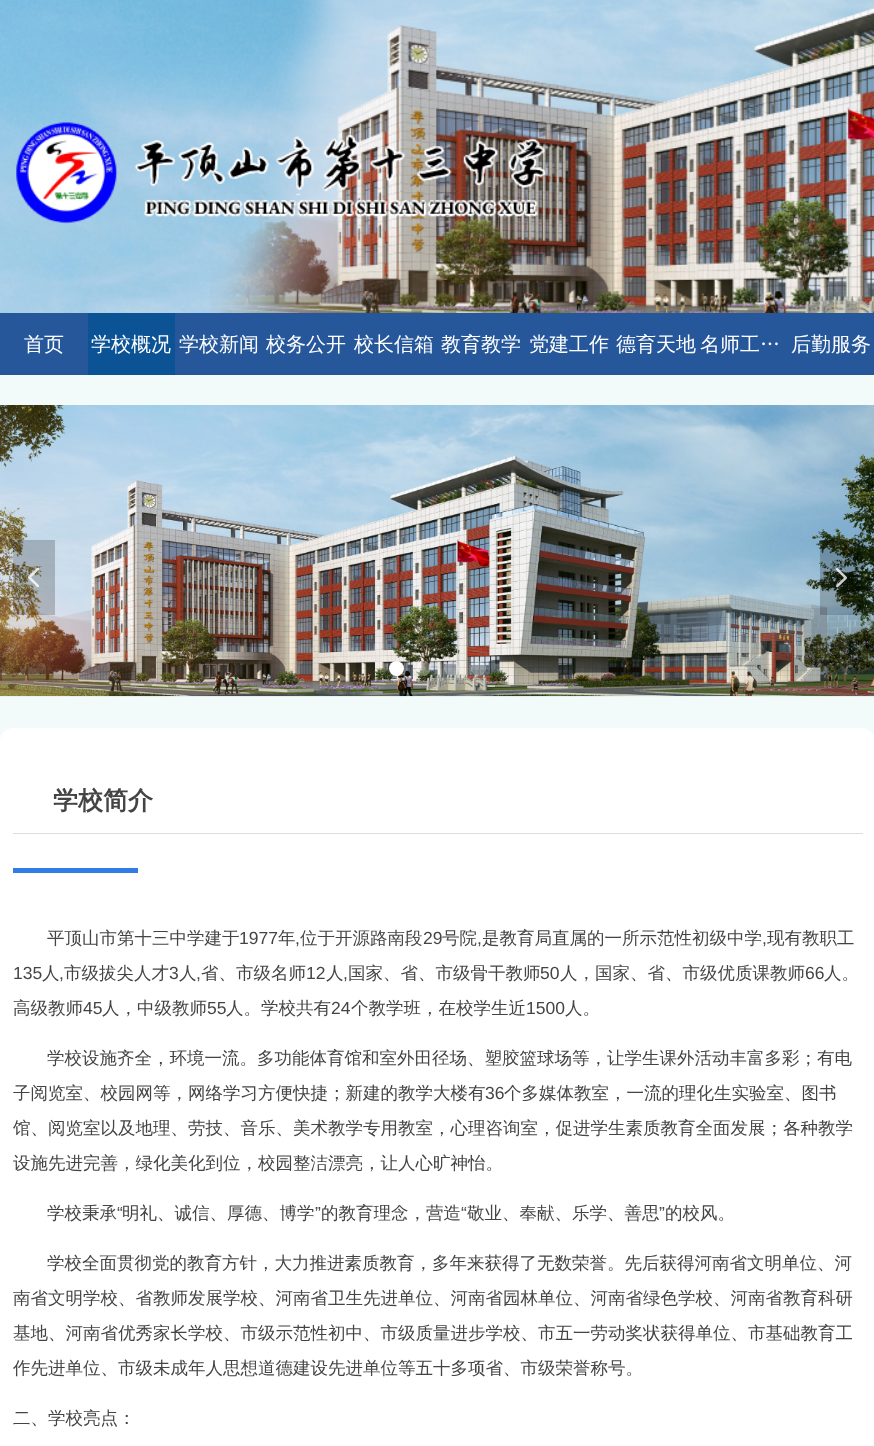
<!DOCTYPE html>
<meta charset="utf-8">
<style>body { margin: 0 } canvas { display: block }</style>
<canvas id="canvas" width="874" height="1446"></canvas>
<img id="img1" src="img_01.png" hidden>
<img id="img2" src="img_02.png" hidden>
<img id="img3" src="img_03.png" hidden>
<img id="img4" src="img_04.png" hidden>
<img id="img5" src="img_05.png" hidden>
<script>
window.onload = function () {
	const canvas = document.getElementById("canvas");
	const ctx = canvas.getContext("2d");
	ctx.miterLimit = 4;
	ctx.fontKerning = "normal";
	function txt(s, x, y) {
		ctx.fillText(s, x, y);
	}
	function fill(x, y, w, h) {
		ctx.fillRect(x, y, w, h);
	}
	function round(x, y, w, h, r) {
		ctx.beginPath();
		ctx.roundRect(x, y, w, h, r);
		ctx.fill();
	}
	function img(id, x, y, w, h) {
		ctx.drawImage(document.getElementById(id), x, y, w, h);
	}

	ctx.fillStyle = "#F2FAFA";
	fill(0, 0, 874, 1446);
	img("img1", 0, 0, 874, 313);
	img("img2", 16, 122, 530, 102);
	ctx.fillStyle = "#25579A";
	fill(0, 313, 874, 62);
	ctx.fillStyle = "#0B5394";
	fill(88, 313, 87, 62);
	img("img3", 0, 405, 874, 292);
	ctx.fillStyle = "rgba(0, 0, 0, 0.2)";
	fill(13, 540, 42, 75);
	img("img4", 28, 567, 11, 21);
	fill(820, 540, 43, 75);
	img("img5", 836, 568, 11, 20);
	ctx.fillStyle = "#FFFFFF";
	ctx.beginPath();
	ctx.arc(396.5, 668.5, 7.5, 0, Math.PI * 2);
	ctx.fill();
	ctx.fillStyle = "rgba(255, 255, 255, 0.3)";
	ctx.beginPath();
	ctx.arc(423.5, 668.5, 7.5, 0, Math.PI * 2);
	ctx.fill();
	ctx.beginPath();
	ctx.arc(451.5, 668.5, 7.5, 0, Math.PI * 2);
	ctx.fill();
	ctx.beginPath();
	ctx.arc(478.5, 668.5, 7.5, 0, Math.PI * 2);
	ctx.fill();
	ctx.fillStyle = "#FFFFFF";
	round(0, 728, 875, 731, 13);
	ctx.fillStyle = "#DDDDDD";
	fill(13, 833, 850, 1);
	ctx.fillStyle = "#307DE5";
	fill(13, 868, 125, 5);
	ctx.font = "500 20px WenQuanYi Zen Hei";
	ctx.fillStyle = "#FFFFFF";
	txt("首页", 24, 351);
	txt("学校概况", 91, 351);
	txt("学校新闻", 179, 351);
	txt("校务公开", 266, 351);
	txt("校长信箱", 354, 351);
	txt("教育教学", 441, 351);
	txt("党建工作", 529, 351);
	txt("德育天地", 616, 351);
	txt("名师工…", 700, 351);
	txt("后勤服务", 791, 351);
	ctx.font = "bold 25px WenQuanYi Zen Hei";
	ctx.fillStyle = "#444444";
	txt("学校简介", 53, 809);
	ctx.font = "500 17.5px WenQuanYi Zen Hei";
	txt("平顶山市第十三中学建于", 47, 944);
	ctx.font = "17.5px Liberation Sans";
	txt("1977", 239, 944);
	ctx.font = "500 17.5px WenQuanYi Zen Hei";
	txt("年", 278, 944);
	ctx.font = "17.5px Liberation Sans";
	txt(",", 295, 944);
	ctx.font = "500 17.5px WenQuanYi Zen Hei";
	txt("位于开源路南段", 300, 944);
	ctx.font = "17.5px Liberation Sans";
	txt("29", 423, 944);
	ctx.font = "500 17.5px WenQuanYi Zen Hei";
	txt("号院", 442, 944);
	ctx.font = "17.5px Liberation Sans";
	txt(",", 477, 944);
	ctx.font = "500 17.5px WenQuanYi Zen Hei";
	txt("是教育局直属的一所示范性初级中学", 482, 944);
	ctx.font = "17.5px Liberation Sans";
	txt(",", 762, 944);
	ctx.font = "500 17.5px WenQuanYi Zen Hei";
	txt("现有教职工", 767, 944);
	ctx.font = "17.5px Liberation Sans";
	txt("135", 13, 979);
	ctx.font = "500 17.5px WenQuanYi Zen Hei";
	txt("人", 42, 979);
	ctx.font = "17.5px Liberation Sans";
	txt(",", 59, 979);
	ctx.font = "500 17.5px WenQuanYi Zen Hei";
	txt("市级拔尖人才", 64, 979);
	ctx.font = "17.5px Liberation Sans";
	txt("3", 169, 979);
	ctx.font = "500 17.5px WenQuanYi Zen Hei";
	txt("人", 179, 979);
	ctx.font = "17.5px Liberation Sans";
	txt(",", 196, 979);
	ctx.font = "500 17.5px WenQuanYi Zen Hei";
	txt("省、市级名师", 201, 979);
	ctx.font = "17.5px Liberation Sans";
	txt("12", 306, 979);
	ctx.font = "500 17.5px WenQuanYi Zen Hei";
	txt("人", 326, 979);
	ctx.font = "17.5px Liberation Sans";
	txt(",", 343, 979);
	ctx.font = "500 17.5px WenQuanYi Zen Hei";
	txt("国家、省、市级骨干教师", 348, 979);
	ctx.font = "17.5px Liberation Sans";
	txt("50", 540, 979);
	ctx.font = "500 17.5px WenQuanYi Zen Hei";
	txt("人，国家、省、市级优质课教师", 560, 979);
	ctx.font = "17.5px Liberation Sans";
	txt("66", 805, 979);
	ctx.font = "500 17.5px WenQuanYi Zen Hei";
	txt("人。", 824, 979);
	txt("高级教师", 13, 1014);
	ctx.font = "17.5px Liberation Sans";
	txt("45", 83, 1014);
	ctx.font = "500 17.5px WenQuanYi Zen Hei";
	txt("人，中级教师", 102, 1014);
	ctx.font = "17.5px Liberation Sans";
	txt("55", 207, 1014);
	ctx.font = "500 17.5px WenQuanYi Zen Hei";
	txt("人。学校共有", 226, 1014);
	ctx.font = "17.5px Liberation Sans";
	txt("24", 331, 1014);
	ctx.font = "500 17.5px WenQuanYi Zen Hei";
	txt("个教学班，在校学生近", 351, 1014);
	ctx.font = "17.5px Liberation Sans";
	txt("1500", 526, 1014);
	ctx.font = "500 17.5px WenQuanYi Zen Hei";
	txt("人。", 565, 1014);
	txt("学校设施齐全，环境一流。多功能体育馆和室外田径场、塑胶篮球场等，让学生课外活动丰富多彩；有电", 47, 1064);
	txt("子阅览室、校园网等，网络学习方便快捷；新建的教学大楼有", 13, 1099);
	ctx.font = "17.5px Liberation Sans";
	txt("36", 485, 1099);
	ctx.font = "500 17.5px WenQuanYi Zen Hei";
	txt("个多媒体教室，一流的理化生实验室、图书", 504, 1099);
	txt("馆、阅览室以及地理、劳技、音乐、美术教学专用教室，心理咨询室，促进学生素质教育全面发展；各种教学", 13, 1134);
	txt("设施先进完善，绿化美化到位，校园整洁漂亮，让人心旷神怡。", 13, 1169);
	txt("学校秉承", 47, 1219);
	ctx.font = "17.5px Liberation Sans";
	txt("“", 117, 1219);
	ctx.font = "500 17.5px WenQuanYi Zen Hei";
	txt("明礼、诚信、厚德、博学", 122, 1219);
	ctx.font = "17.5px Liberation Sans";
	txt("”", 315, 1219);
	ctx.font = "500 17.5px WenQuanYi Zen Hei";
	txt("的教育理念，营造", 321, 1219);
	ctx.font = "17.5px Liberation Sans";
	txt("“", 461, 1219);
	ctx.font = "500 17.5px WenQuanYi Zen Hei";
	txt("敬业、奉献、乐学、善思", 467, 1219);
	ctx.font = "17.5px Liberation Sans";
	txt("”", 659, 1219);
	ctx.font = "500 17.5px WenQuanYi Zen Hei";
	txt("的校风。", 665, 1219);
	txt("学校全面贯彻党的教育方针，大力推进素质教育，多年来获得了无数荣誉。先后获得河南省文明单位、河", 47, 1269);
	txt("南省文明学校、省教师发展学校、河南省卫生先进单位、河南省园林单位、河南省绿色学校、河南省教育科研", 13, 1304);
	txt("基地、河南省优秀家长学校、市级示范性初中、市级质量进步学校、市五一劳动奖状获得单位、市基础教育工", 13, 1339);
	txt("作先进单位、市级未成年人思想道德建设先进单位等五十多项省、市级荣誉称号。", 13, 1374);
	txt("二、学校亮点：", 13, 1424);
};
</script>
